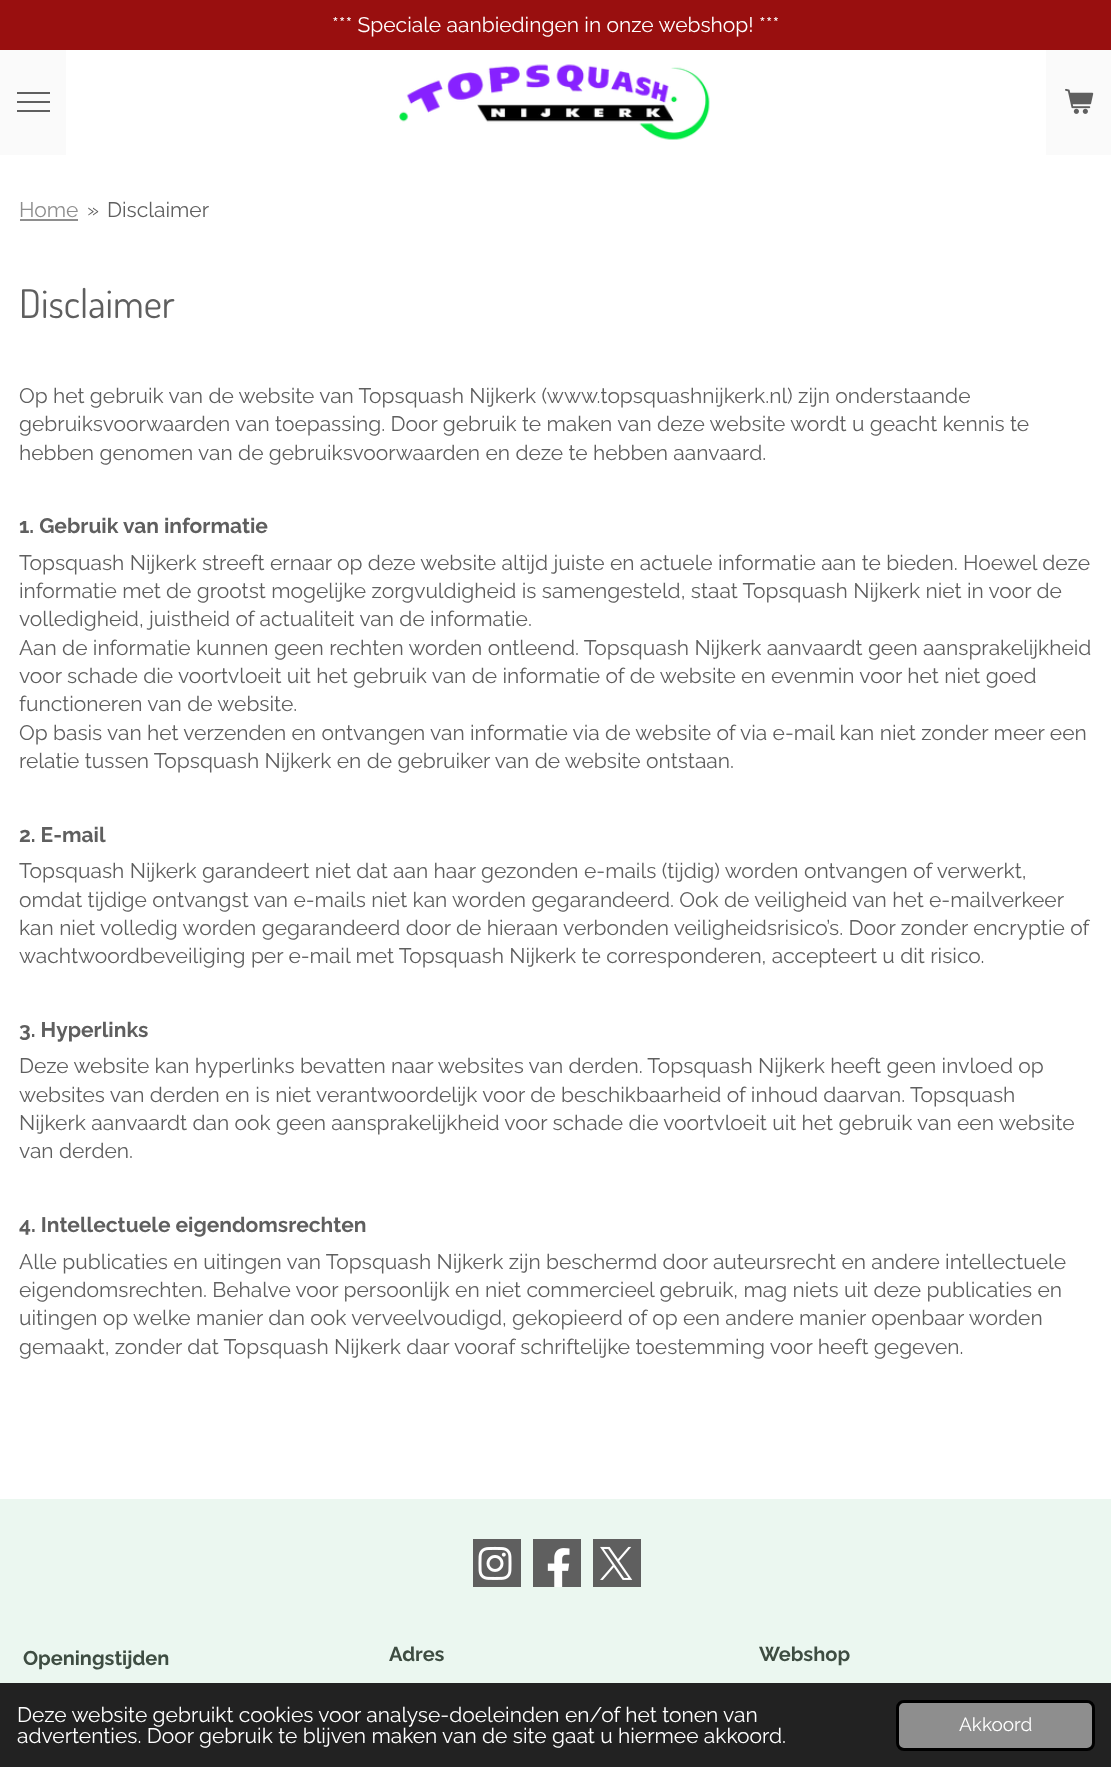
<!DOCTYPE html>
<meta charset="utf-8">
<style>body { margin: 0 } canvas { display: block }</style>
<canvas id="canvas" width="1111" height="1767"></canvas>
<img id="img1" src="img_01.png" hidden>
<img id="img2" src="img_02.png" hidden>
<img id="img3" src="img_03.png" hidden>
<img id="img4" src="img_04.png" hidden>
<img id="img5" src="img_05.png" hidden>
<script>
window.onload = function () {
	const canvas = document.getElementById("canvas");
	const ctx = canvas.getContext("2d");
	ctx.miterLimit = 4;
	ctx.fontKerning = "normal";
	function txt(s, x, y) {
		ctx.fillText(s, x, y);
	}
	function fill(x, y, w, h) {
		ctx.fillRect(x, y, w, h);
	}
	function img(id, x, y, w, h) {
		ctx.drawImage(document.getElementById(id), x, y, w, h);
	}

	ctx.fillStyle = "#FFFFFF";
	fill(0, 0, 1111, 1767);
	ctx.fillStyle = "#990F0F";
	fill(0, 0, 1111, 50);
	ctx.fillStyle = "#FAFAFA";
	fill(0, 50, 66, 105);
	ctx.fillStyle = "#5F5F5F";
	fill(17, 101, 33, 2);
	fill(17, 92, 33, 2);
	fill(17, 110, 33, 2);
	img("img1", 399, 64, 311, 76);
	ctx.fillStyle = "#FAFAFA";
	fill(1046, 50, 65, 105);
	img("img2", 1065, 88, 29, 26);
	ctx.fillStyle = "#8E8E8E";
	fill(20, 219, 58, 2);
	ctx.fillStyle = "#EBF7F0";
	fill(0, 1499, 1111, 184);
	ctx.fillStyle = "#5F5F5F";
	fill(473, 1539, 48, 48);
	img("img3", 478, 1546, 34, 34);
	fill(533, 1539, 48, 48);
	img("img4", 547, 1548, 23, 39);
	fill(593, 1539, 48, 48);
	img("img5", 600, 1546, 33, 34);
	ctx.fillStyle = "#222222";
	fill(0, 1683, 1111, 84);
	ctx.fillStyle = "#8E8E8E";
	ctx.beginPath();
	ctx.roundRect(897.5, 1701.5, 196, 48, 6.5);
	ctx.fill();
	ctx.strokeStyle = "#000000";
	ctx.lineWidth = 3;
	ctx.stroke();
	ctx.font = "21px Raleway";
	ctx.fillStyle = "#FFFFFF";
	txt("*** Speciale aanbiedingen in onze webshop! ***", 332, 32);
	ctx.fillStyle = "#8E8E8E";
	txt("Home", 19, 217);
	ctx.fillStyle = "#5F5F5F";
	txt("»", 87, 217);
	txt("Disclaimer", 107, 217);
	ctx.font = "39.5px Dosis";
	txt("Disclaimer", 19, 318);
	ctx.font = "21px Raleway";
	txt("Op het gebruik van de website van Topsquash Nijkerk (www.topsquashnijkerk.nl) zijn onderstaande", 19, 403);
	txt("gebruiksvoorwaarden van toepassing. Door gebruik te maken van deze website wordt u geacht kennis te", 19, 431);
	txt("hebben genomen van de gebruiksvoorwaarden en deze te hebben aanvaard.", 19, 460);
	ctx.font = "bold 21px Raleway";
	txt("1. Gebruik van informatie", 19, 533);
	ctx.font = "21px Raleway";
	txt("Topsquash Nijkerk streeft ernaar op deze website altijd juiste en actuele informatie aan te bieden. Hoewel deze", 19, 570);
	txt("informatie met de grootst mogelijke zorgvuldigheid is samengesteld, staat Topsquash Nijkerk niet in voor de", 19, 598);
	txt("volledigheid, juistheid of actualiteit van de informatie.", 19, 626);
	txt("Aan de informatie kunnen geen rechten worden ontleend. Topsquash Nijkerk aanvaardt geen aansprakelijkheid", 19, 655);
	txt("voor schade die voortvloeit uit het gebruik van de informatie of de website en evenmin voor het niet goed", 19, 683);
	txt("functioneren van de website.", 19, 711);
	txt("Op basis van het verzenden en ontvangen van informatie via de website of via e-mail kan niet zonder meer een", 19, 740);
	txt("relatie tussen Topsquash Nijkerk en de gebruiker van de website ontstaan.", 19, 768);
	ctx.font = "bold 21px Raleway";
	txt("2. E-mail", 19, 842);
	ctx.font = "21px Raleway";
	txt("Topsquash Nijkerk garandeert niet dat aan haar gezonden e-mails (tijdig) worden ontvangen of verwerkt,", 19, 878);
	txt("omdat tijdige ontvangst van e-mails niet kan worden gegarandeerd. Ook de veiligheid van het e-mailverkeer", 19, 907);
	txt("kan niet volledig worden gegarandeerd door de hieraan verbonden veiligheidsrisico’s. Door zonder encryptie of", 19, 935);
	txt("wachtwoordbeveiliging per e-mail met Topsquash Nijkerk te corresponderen, accepteert u dit risico.", 19, 963);
	ctx.font = "bold 21px Raleway";
	txt("3. Hyperlinks", 19, 1037);
	ctx.font = "21px Raleway";
	txt("Deze website kan hyperlinks bevatten naar websites van derden. Topsquash Nijkerk heeft geen invloed op", 19, 1073);
	txt("websites van derden en is niet verantwoordelijk voor de beschikbaarheid of inhoud daarvan. Topsquash", 19, 1102);
	txt("Nijkerk aanvaardt dan ook geen aansprakelijkheid voor schade die voortvloeit uit het gebruik van een website", 19, 1130);
	txt("van derden.", 19, 1158);
	ctx.font = "bold 21px Raleway";
	txt("4. Intellectuele eigendomsrechten", 19, 1232);
	ctx.font = "21px Raleway";
	txt("Alle publicaties en uitingen van Topsquash Nijkerk zijn beschermd door auteursrecht en andere intellectuele", 19, 1269);
	txt("eigendomsrechten. Behalve voor persoonlijk en niet commercieel gebruik, mag niets uit deze publicaties en", 19, 1297);
	txt("uitingen op welke manier dan ook verveelvoudigd, gekopieerd of op een andere manier openbaar worden", 19, 1325);
	txt("gemaakt, zonder dat Topsquash Nijkerk daar vooraf schriftelijke toestemming voor heeft gegeven.", 19, 1354);
	ctx.font = "bold 20px Raleway";
	ctx.fillStyle = "#3E4D42";
	txt("Openingstijden", 23, 1665);
	txt("Adres", 389, 1661);
	txt("Webshop", 759, 1661);
	ctx.font = "21px Raleway";
	ctx.fillStyle = "#FFFFFF";
	txt("Deze website gebruikt cookies voor analyse-doeleinden en/of het tonen van", 17, 1722);
	txt("advertenties. Door gebruik te blijven maken van de site gaat u hiermee akkoord.", 17, 1743);
	ctx.font = "19px Raleway";
	txt("Akkoord", 959, 1731);
};
</script>
